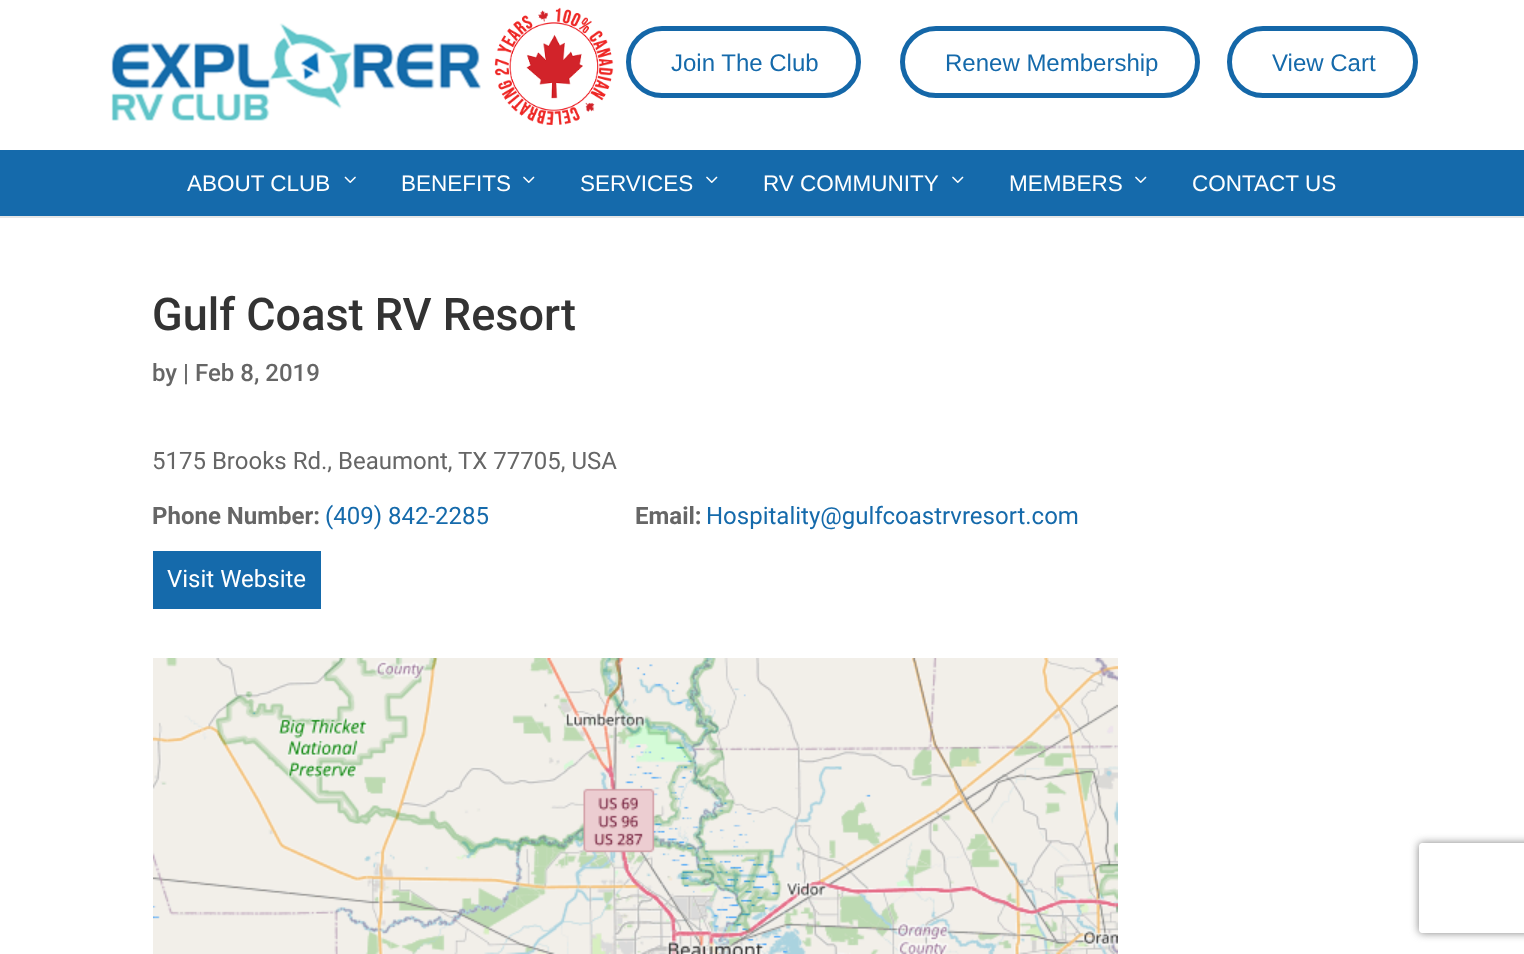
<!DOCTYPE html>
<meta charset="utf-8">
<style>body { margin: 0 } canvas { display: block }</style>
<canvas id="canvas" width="1524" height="954"></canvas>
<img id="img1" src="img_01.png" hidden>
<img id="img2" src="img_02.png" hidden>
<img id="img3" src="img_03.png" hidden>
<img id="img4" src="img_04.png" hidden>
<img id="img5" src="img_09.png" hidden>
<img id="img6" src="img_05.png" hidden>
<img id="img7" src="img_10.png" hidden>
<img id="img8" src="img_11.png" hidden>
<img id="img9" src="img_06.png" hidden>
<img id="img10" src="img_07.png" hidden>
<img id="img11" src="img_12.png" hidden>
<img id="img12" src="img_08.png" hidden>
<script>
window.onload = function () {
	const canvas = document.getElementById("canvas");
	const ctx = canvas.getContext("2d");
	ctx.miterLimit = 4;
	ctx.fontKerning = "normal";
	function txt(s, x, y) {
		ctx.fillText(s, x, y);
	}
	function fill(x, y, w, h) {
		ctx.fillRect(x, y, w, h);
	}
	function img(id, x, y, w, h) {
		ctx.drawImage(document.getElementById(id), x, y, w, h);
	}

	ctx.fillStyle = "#FFFFFF";
	fill(0, 0, 1524, 954);
	ctx.fillStyle = "#E6E6E6";
	fill(0, 216, 1524, 2);
	img("img1", 111, 23, 370, 98);
	img("img2", 494, 7, 120, 118);
	ctx.beginPath();
	ctx.roundRect(628.5, 28.5, 230, 67, 33.5);
	ctx.strokeStyle = "#1467A8";
	ctx.lineWidth = 5;
	ctx.stroke();
	ctx.beginPath();
	ctx.roundRect(902.5, 28.5, 295, 67, 33.5);
	ctx.stroke();
	ctx.beginPath();
	ctx.roundRect(1229.5, 28.5, 186, 67, 33.5);
	ctx.stroke();
	ctx.fillStyle = "#156AAB";
	fill(0, 150, 1524, 66);
	img("img3", 344, 176, 12, 7);
	img("img4", 523, 176, 12, 7);
	img("img4", 706, 176, 12, 7);
	img("img4", 952, 176, 12, 7);
	img("img4", 1135, 176, 12, 7);
	fill(153, 551, 168, 58);
	img("img5", 153, 871, 47, 83);
	img("img6", 153, 658, 47, 214);
	img("img7", 200, 871, 384, 83);
	img("img8", 583, 871, 385, 83);
	img("img9", 200, 658, 384, 214);
	img("img10", 583, 658, 385, 214);
	img("img11", 967, 871, 151, 83);
	img("img12", 967, 658, 151, 214);
	ctx.save();
	ctx.beginPath();
	ctx.moveTo(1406, 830);
	ctx.lineTo(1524, 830);
	ctx.lineTo(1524, 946);
	ctx.lineTo(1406, 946);
	ctx.closePath();
	ctx.moveTo(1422, 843);
	ctx.lineTo(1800, 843);
	ctx.bezierCurveTo(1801.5, 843, 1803, 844.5, 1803, 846);
	ctx.lineTo(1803, 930);
	ctx.bezierCurveTo(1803, 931.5, 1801.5, 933, 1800, 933);
	ctx.lineTo(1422, 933);
	ctx.bezierCurveTo(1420.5, 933, 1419, 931.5, 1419, 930);
	ctx.lineTo(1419, 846);
	ctx.bezierCurveTo(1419, 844.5, 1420.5, 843, 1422, 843);
	ctx.closePath();
	ctx.clip("evenodd");
	ctx.fillStyle = "#808080";
	ctx.filter = "blur(4px)";
	ctx.beginPath();
	ctx.roundRect(1419, 843, 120, 90, 3);
	ctx.fill();
	ctx.filter = "none";
	ctx.restore();
	ctx.font = "24px Liberation Sans";
	txt("Join The Club", 671, 71);
	txt("Renew Membership", 945, 71);
	txt("View Cart", 1272, 71);
	ctx.font = "22.5px Liberation Sans";
	ctx.fillStyle = "#FFFFFF";
	txt("ABOUT CLUB", 187, 191);
	txt("BENEFITS", 401, 191);
	txt("SERVICES", 580, 191);
	txt("RV COMMUNITY", 763, 191);
	txt("MEMBERS", 1009, 191);
	txt("CONTACT US", 1192, 191);
	ctx.font = "500 45px Roboto";
	ctx.fillStyle = "#333333";
	txt("Gulf Coast RV Resort", 152, 330);
	ctx.font = "500 24px Roboto";
	ctx.fillStyle = "#666666";
	txt("by | Feb 8, 2019", 152, 381);
	ctx.font = "24px Roboto";
	txt("5175 Brooks Rd., Beaumont, TX 77705, USA", 152, 469);
	ctx.font = "bold 24px Roboto";
	txt("Phone Number:", 152, 524);
	ctx.font = "24px Roboto";
	ctx.fillStyle = "#156AAB";
	txt("(409) 842-2285", 325, 524);
	ctx.fillStyle = "#FFFFFF";
	txt("Visit Website", 167, 587);
	ctx.font = "bold 24px Roboto";
	ctx.fillStyle = "#666666";
	txt("Email:", 635, 524);
	ctx.font = "24px Roboto";
	ctx.fillStyle = "#156AAB";
	txt("Hospitality@gulfcoastrvresort.com", 706, 524);
};
</script>
